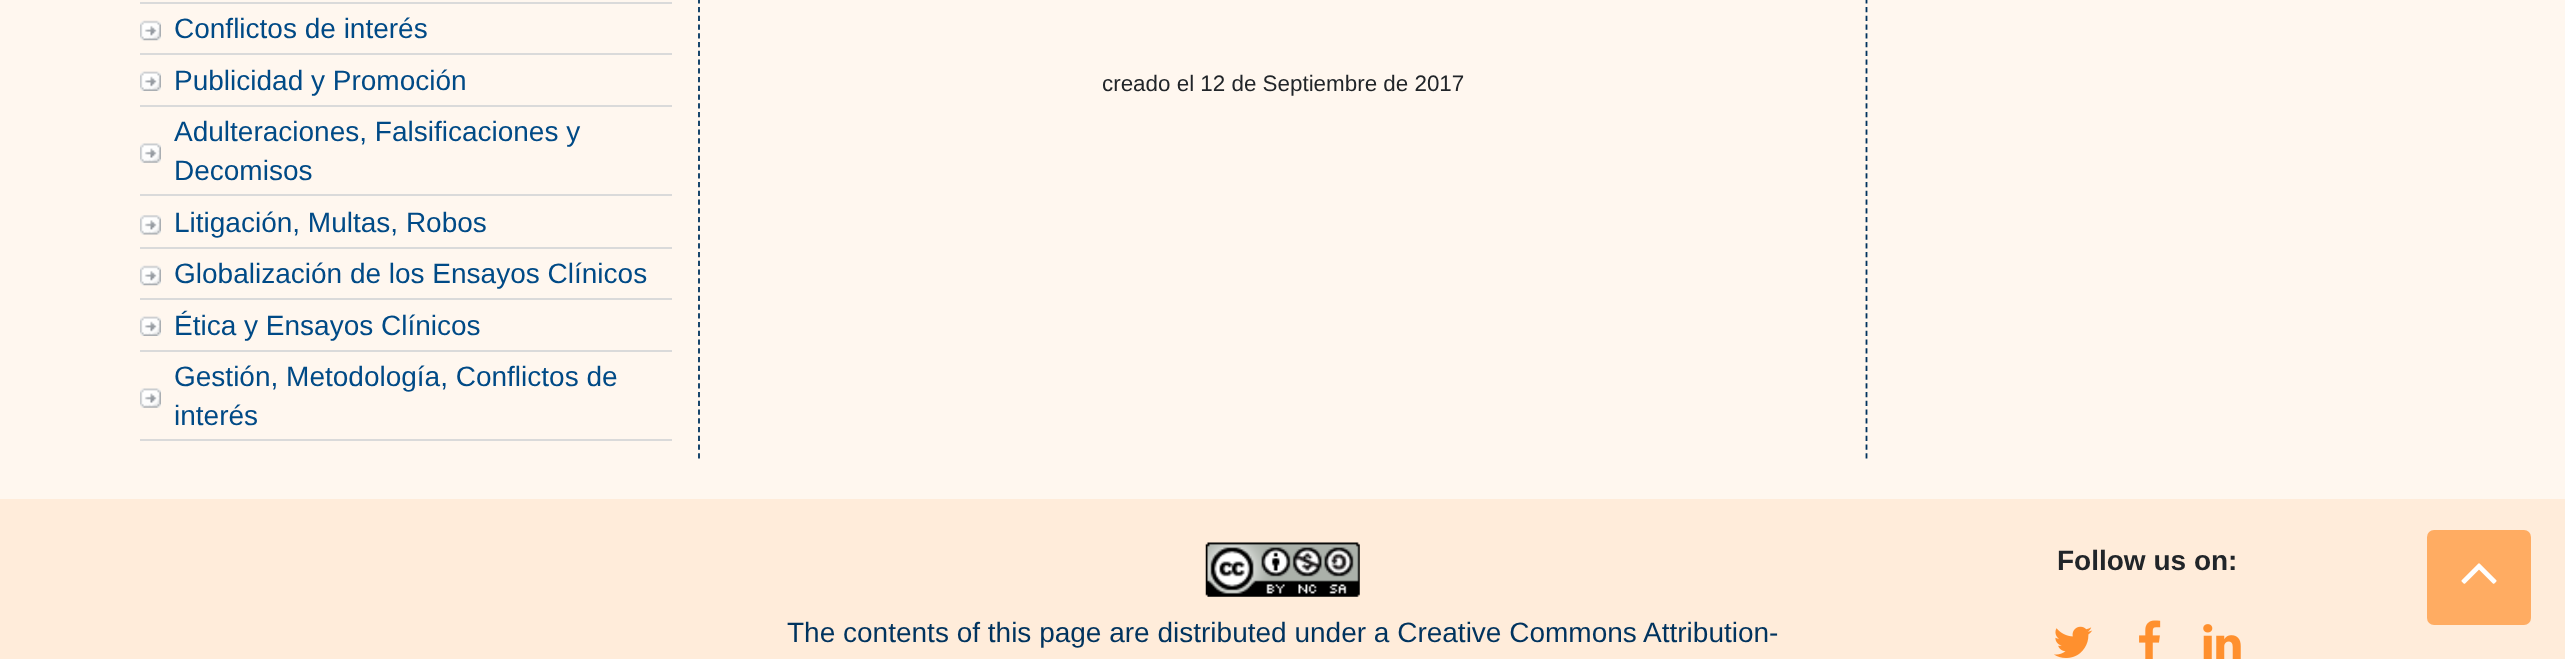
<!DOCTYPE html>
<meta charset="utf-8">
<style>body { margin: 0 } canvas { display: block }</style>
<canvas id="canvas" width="2565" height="659"></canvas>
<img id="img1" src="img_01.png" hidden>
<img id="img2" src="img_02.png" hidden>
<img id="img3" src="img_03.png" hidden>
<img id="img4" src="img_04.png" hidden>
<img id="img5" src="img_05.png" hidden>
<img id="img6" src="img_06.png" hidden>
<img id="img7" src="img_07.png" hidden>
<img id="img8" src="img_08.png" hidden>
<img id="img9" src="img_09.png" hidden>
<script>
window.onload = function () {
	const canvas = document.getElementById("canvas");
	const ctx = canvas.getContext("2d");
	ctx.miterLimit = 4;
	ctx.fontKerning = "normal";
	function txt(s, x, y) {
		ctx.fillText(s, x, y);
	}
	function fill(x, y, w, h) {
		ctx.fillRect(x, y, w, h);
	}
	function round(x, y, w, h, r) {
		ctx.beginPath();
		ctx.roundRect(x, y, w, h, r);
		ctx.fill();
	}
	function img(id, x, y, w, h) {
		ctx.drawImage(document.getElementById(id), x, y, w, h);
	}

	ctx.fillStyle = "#FFF7EF";
	fill(0, 0, 2565, 659);
	ctx.fillStyle = "#DADADA";
	fill(140, 2, 532, 2);
	img("img1", 140, 20, 21, 21);
	fill(140, 53, 532, 2);
	img("img2", 140, 71, 21, 20);
	fill(140, 105, 532, 2);
	img("img3", 140, 143, 21, 20);
	fill(140, 194, 532, 2);
	img("img4", 140, 215, 21, 20);
	fill(140, 247, 532, 2);
	img("img1", 140, 265, 21, 21);
	fill(140, 298, 532, 2);
	img("img2", 140, 316, 21, 20);
	fill(140, 350, 532, 2);
	img("img3", 140, 388, 21, 20);
	fill(140, 439, 532, 2);
	ctx.beginPath();
	ctx.moveTo(1866.5, -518);
	ctx.lineTo(1866.5, 458.5);
	ctx.strokeStyle = "#00335E";
	ctx.lineWidth = 1.8;
	ctx.setLineDash([5.25, 3.5]);
	ctx.stroke();
	ctx.beginPath();
	ctx.moveTo(699, -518);
	ctx.lineTo(699, 458.5);
	ctx.stroke();
	ctx.fillStyle = "#FFECDA";
	fill(0, 499, 2565, 160);
	img("img5", 2054, 626, 39, 32);
	img("img6", 2139, 620, 22, 39);
	img("img7", 2203, 624, 38, 35);
	img("img8", 1205, 542, 155, 55);
	ctx.fillStyle = "#FFAC62";
	round(2427, 530, 104, 95, 7);
	img("img9", 2461, 563, 36, 21);
	ctx.font = "28px Liberation Sans";
	ctx.fillStyle = "#004A86";
	txt("Conflictos de interés", 174, 38);
	txt("Publicidad y Promoción", 174, 90);
	txt("Adulteraciones, Falsificaciones y", 174, 141);
	txt("Decomisos", 174, 180);
	txt("Litigación, Multas, Robos", 174, 232);
	txt("Globalización de los Ensayos Clínicos", 174, 283);
	txt("Ética y Ensayos Clínicos", 174, 335);
	txt("Gestión, Metodología, Conflictos de", 174, 386);
	txt("interés", 174, 425);
	ctx.font = "22.4px Liberation Sans";
	ctx.fillStyle = "#212529";
	txt("creado el 12 de Septiembre de 2017", 1102, 91);
	ctx.font = "bold 28px Liberation Sans";
	txt("Follow us on:", 2057, 570);
	ctx.font = "28px Liberation Sans";
	ctx.fillStyle = "#00335E";
	txt("The contents of this page are distributed under a Creative Commons Attribution-", 787, 642);
};
</script>
